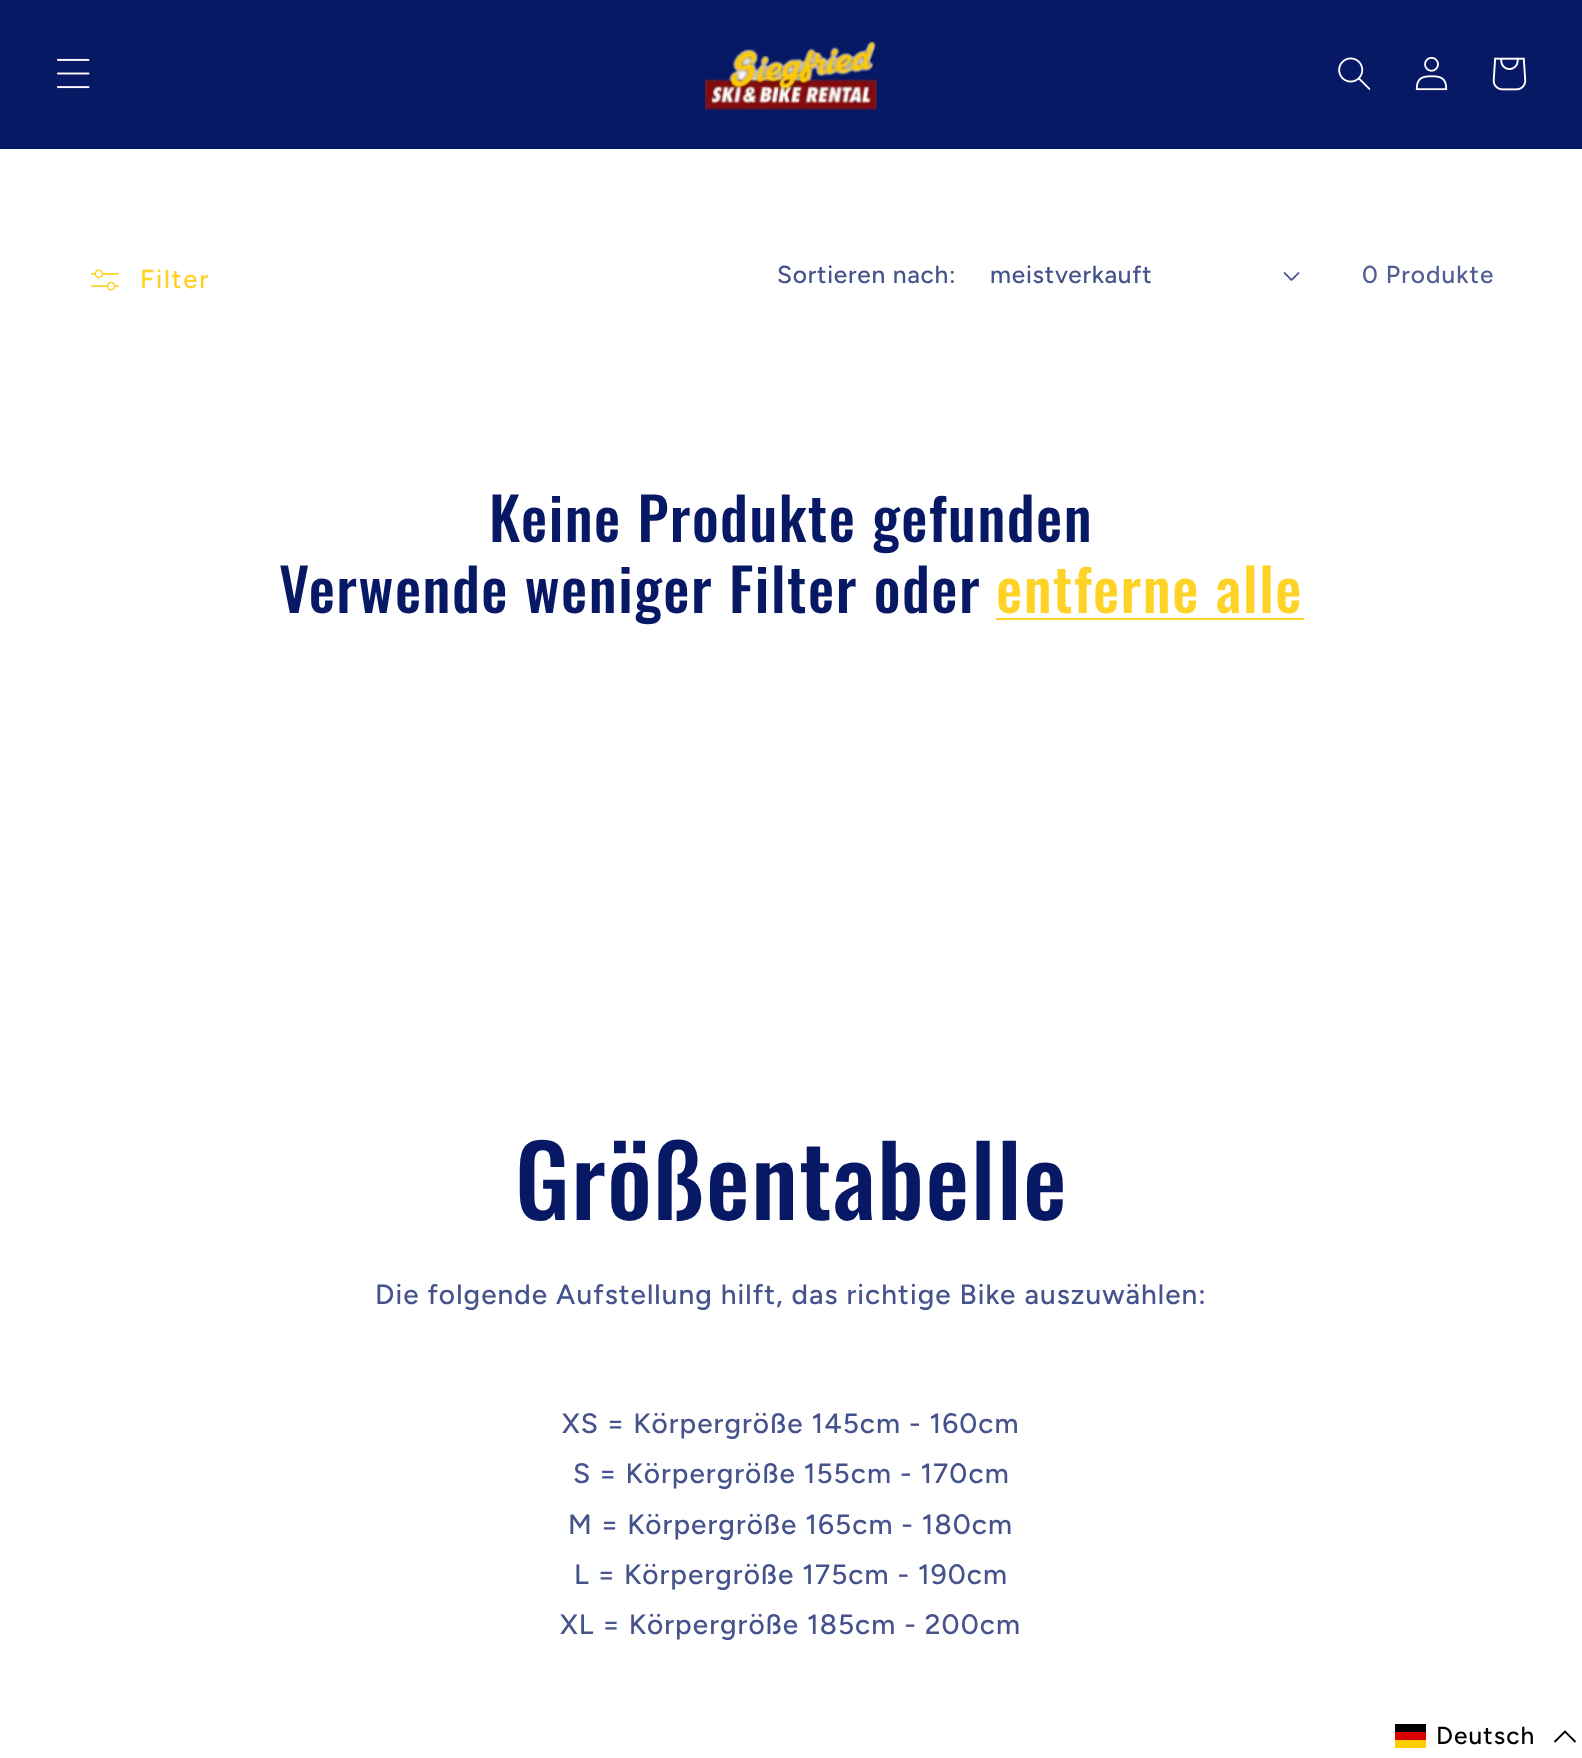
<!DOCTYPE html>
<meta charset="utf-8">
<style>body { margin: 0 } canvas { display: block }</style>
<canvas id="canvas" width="1582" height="1758"></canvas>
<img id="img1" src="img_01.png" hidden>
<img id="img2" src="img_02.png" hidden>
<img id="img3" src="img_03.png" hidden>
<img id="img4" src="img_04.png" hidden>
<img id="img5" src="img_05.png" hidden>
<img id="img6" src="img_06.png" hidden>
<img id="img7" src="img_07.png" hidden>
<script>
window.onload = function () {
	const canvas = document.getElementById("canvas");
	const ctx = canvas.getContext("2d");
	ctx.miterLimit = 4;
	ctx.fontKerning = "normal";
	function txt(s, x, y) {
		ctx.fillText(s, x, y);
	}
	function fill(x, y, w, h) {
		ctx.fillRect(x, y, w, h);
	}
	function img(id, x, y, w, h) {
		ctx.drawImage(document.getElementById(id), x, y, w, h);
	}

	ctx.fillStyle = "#FFFFFF";
	fill(0, 0, 1582, 1758);
	ctx.fillStyle = "#071864";
	fill(0, 0, 1582, 149);
	img("img1", 57, 58, 33, 31);
	img("img2", 705, 41, 172, 70);
	img("img3", 1338, 57, 33, 33);
	img("img4", 1415, 56, 33, 35);
	img("img5", 1492, 57, 35, 34);
	img("img6", 91, 269, 28, 22);
	img("img7", 1283, 272, 17, 9);
	ctx.fillStyle = "#FFD326";
	fill(996, 618, 308, 2);
	ctx.fillStyle = "#FFCE00";
	fill(1395, 1740, 31, 8);
	ctx.fillStyle = "#000000";
	fill(1395, 1724, 31, 8);
	ctx.fillStyle = "#DD0000";
	fill(1395, 1732, 31, 8);
	ctx.beginPath();
	ctx.moveTo(1575.5, 1742);
	ctx.lineTo(1565, 1731.5);
	ctx.lineTo(1554.5, 1742);
	ctx.strokeStyle = "#000000";
	ctx.lineWidth = 1.8;
	ctx.stroke();
	ctx.letterSpacing = "1.75px";
	ctx.font = "500 26px Figtree";
	ctx.fillStyle = "#FFD326";
	txt("Filter", 140, 288);
	ctx.letterSpacing = "0.75px";
	ctx.font = "500 24.5px Figtree";
	ctx.fillStyle = "#45528B";
	txt("Sortieren nach:", 777, 283);
	txt("meistverkauft", 990, 283);
	ctx.letterSpacing = "1.05px";
	ctx.fillStyle = "#515D93";
	txt("0 Produkte", 1362, 283);
	ctx.letterSpacing = "1.5px";
	ctx.font = "500 58.75px Oswald";
	ctx.fillStyle = "#071864";
	txt("Keine Produkte gefunden", 489, 542);
	txt("Verwende weniger Filter oder", 279, 613);
	ctx.fillStyle = "#FFD326";
	txt("entferne alle", 996, 613);
	ctx.font = "500 98px Oswald";
	ctx.fillStyle = "#071864";
	txt("Größentabelle", 515, 1220);
	ctx.letterSpacing = "1.05px";
	ctx.font = "500 28px Figtree";
	ctx.fillStyle = "#45528B";
	txt("Die folgende Aufstellung hilft, das richtige Bike auszuwählen:", 375, 1304);
	txt("XS = Körpergröße 145cm - 160cm", 562, 1433);
	txt("S = Körpergröße 155cm - 170cm", 573, 1483);
	txt("M = Körpergröße 165cm - 180cm", 568, 1534);
	txt("L = Körpergröße 175cm - 190cm", 574, 1584);
	txt("XL = Körpergröße 185cm - 200cm", 560, 1634);
	ctx.font = "500 24.5px Figtree";
	ctx.fillStyle = "#000000";
	txt("Deutsch", 1436, 1744);
};
</script>
